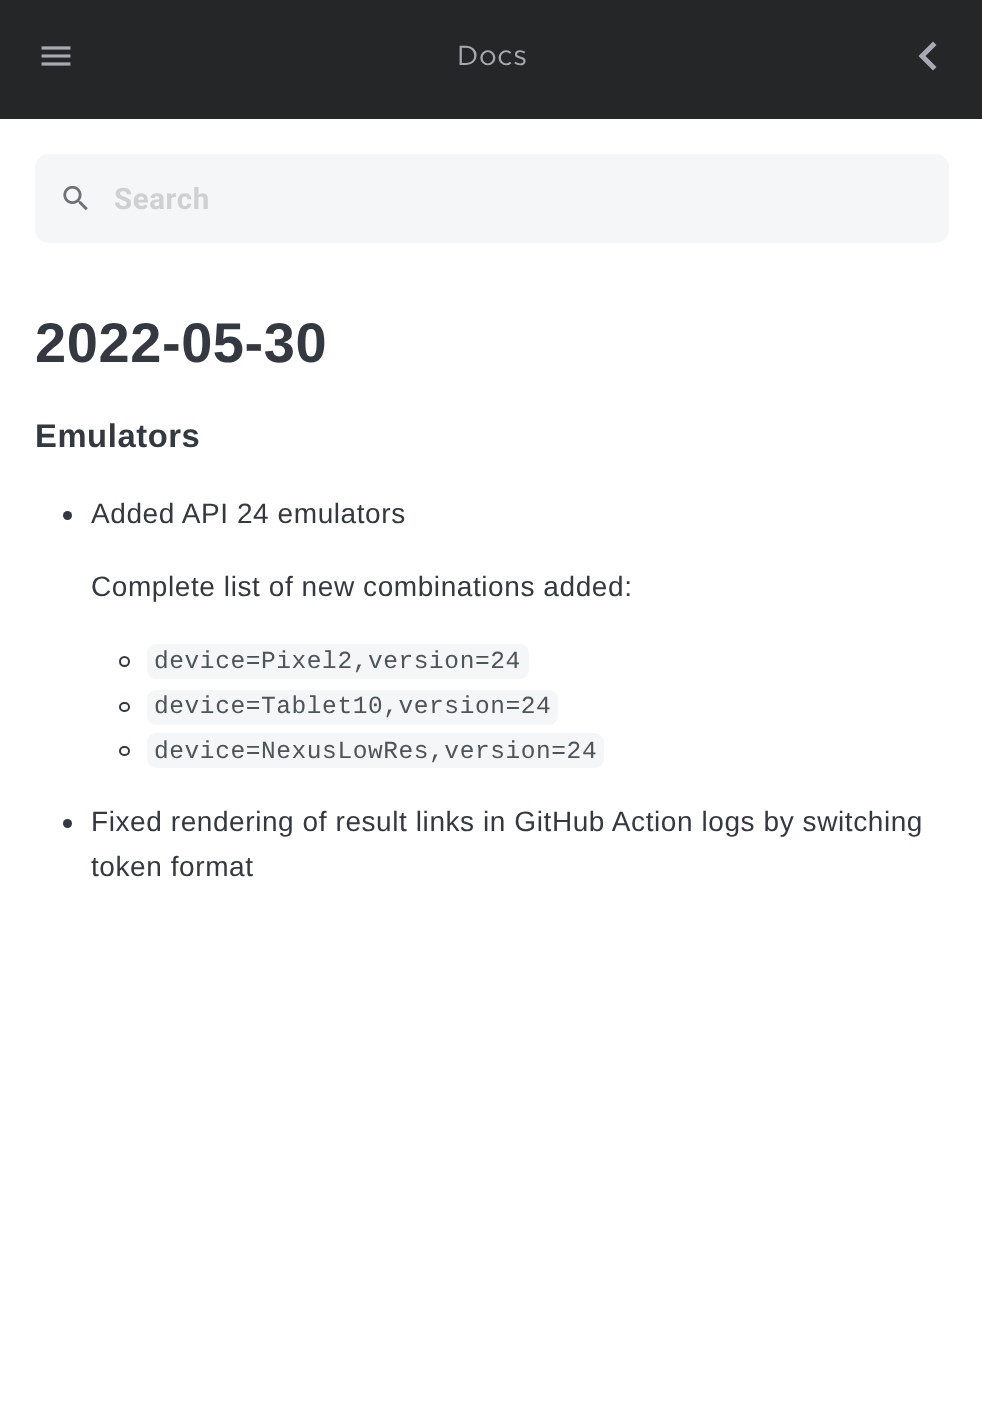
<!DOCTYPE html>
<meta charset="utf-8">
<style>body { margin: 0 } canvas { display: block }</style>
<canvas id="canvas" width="982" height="1402"></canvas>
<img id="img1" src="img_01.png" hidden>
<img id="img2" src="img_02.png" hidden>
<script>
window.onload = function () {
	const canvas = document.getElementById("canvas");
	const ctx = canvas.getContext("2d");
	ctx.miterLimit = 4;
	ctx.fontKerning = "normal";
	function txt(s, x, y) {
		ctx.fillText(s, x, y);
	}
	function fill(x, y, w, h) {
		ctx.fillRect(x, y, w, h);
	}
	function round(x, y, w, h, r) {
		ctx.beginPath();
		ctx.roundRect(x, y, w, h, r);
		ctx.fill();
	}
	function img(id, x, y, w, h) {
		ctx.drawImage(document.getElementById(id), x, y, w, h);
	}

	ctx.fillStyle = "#FFFFFF";
	fill(0, 0, 982, 1402);
	ctx.fillStyle = "#252627";
	fill(0, 0, 982, 119);
	img("img1", 41, 46, 30, 20);
	ctx.fillStyle = "#A9A9B3";
	ctx.beginPath();
	ctx.moveTo(936.5, 67);
	ctx.lineTo(933, 70.5);
	ctx.lineTo(918.5, 56);
	ctx.lineTo(933, 41.5);
	ctx.lineTo(936.5, 45);
	ctx.lineTo(925.5, 56);
	ctx.closePath();
	ctx.fill();
	ctx.fillStyle = "#F4F6F7";
	ctx.beginPath();
	ctx.roundRect(37, 156, 910, 85, 12);
	ctx.fill();
	ctx.strokeStyle = "#F4F6F7";
	ctx.lineWidth = 4;
	ctx.stroke();
	img("img2", 63, 186, 25, 25);
	ctx.fillStyle = "#343840";
	ctx.beginPath();
	ctx.arc(67.5, 515.5, 4.5, 0, Math.PI * 2);
	ctx.fill();
	ctx.beginPath();
	ctx.arc(124.5, 661.5, 4.5, 0, Math.PI * 2);
	ctx.strokeStyle = "#343840";
	ctx.lineWidth = 2;
	ctx.stroke();
	ctx.fillStyle = "#F4F6F7";
	round(147, 644, 382, 35, 9);
	ctx.beginPath();
	ctx.roundRect(120, 703, 9, 8, 4);
	ctx.stroke();
	round(147, 690, 411, 35, 9);
	ctx.beginPath();
	ctx.roundRect(120, 747, 9, 8, 4);
	ctx.stroke();
	round(147, 733, 457, 35, 9);
	ctx.fillStyle = "#343840";
	ctx.beginPath();
	ctx.arc(67.5, 823.5, 4.5, 0, Math.PI * 2);
	ctx.fill();
	ctx.letterSpacing = "0.58px";
	ctx.font = "28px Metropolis";
	ctx.fillStyle = "#A9A9B3";
	txt("Docs", 457, 65);
	ctx.font = "bold 29.5px Roboto";
	ctx.fillStyle = "#CED0D2";
	txt("Search", 114, 209);
	ctx.font = "bold 56px Liberation Sans";
	ctx.fillStyle = "#343840";
	txt("2022-05-30", 35, 362);
	ctx.font = "bold 32.75px Liberation Sans";
	txt("Emulators", 35, 447);
	ctx.font = "28px Liberation Sans";
	txt("Added API 24 emulators", 91, 523);
	txt("Complete list of new combinations added:", 91, 596);
	ctx.font = "24.5px Liberation Mono";
	ctx.fillStyle = "#4F535A";
	txt("device=Pixel2,version=24", 154, 668);
	txt("device=Tablet10,version=24", 154, 713);
	txt("device=NexusLowRes,version=24", 154, 758);
	ctx.font = "28px Liberation Sans";
	ctx.fillStyle = "#343840";
	txt("Fixed rendering of result links in GitHub Action logs by switching", 91, 831);
	txt("token format", 91, 876);
};
</script>
